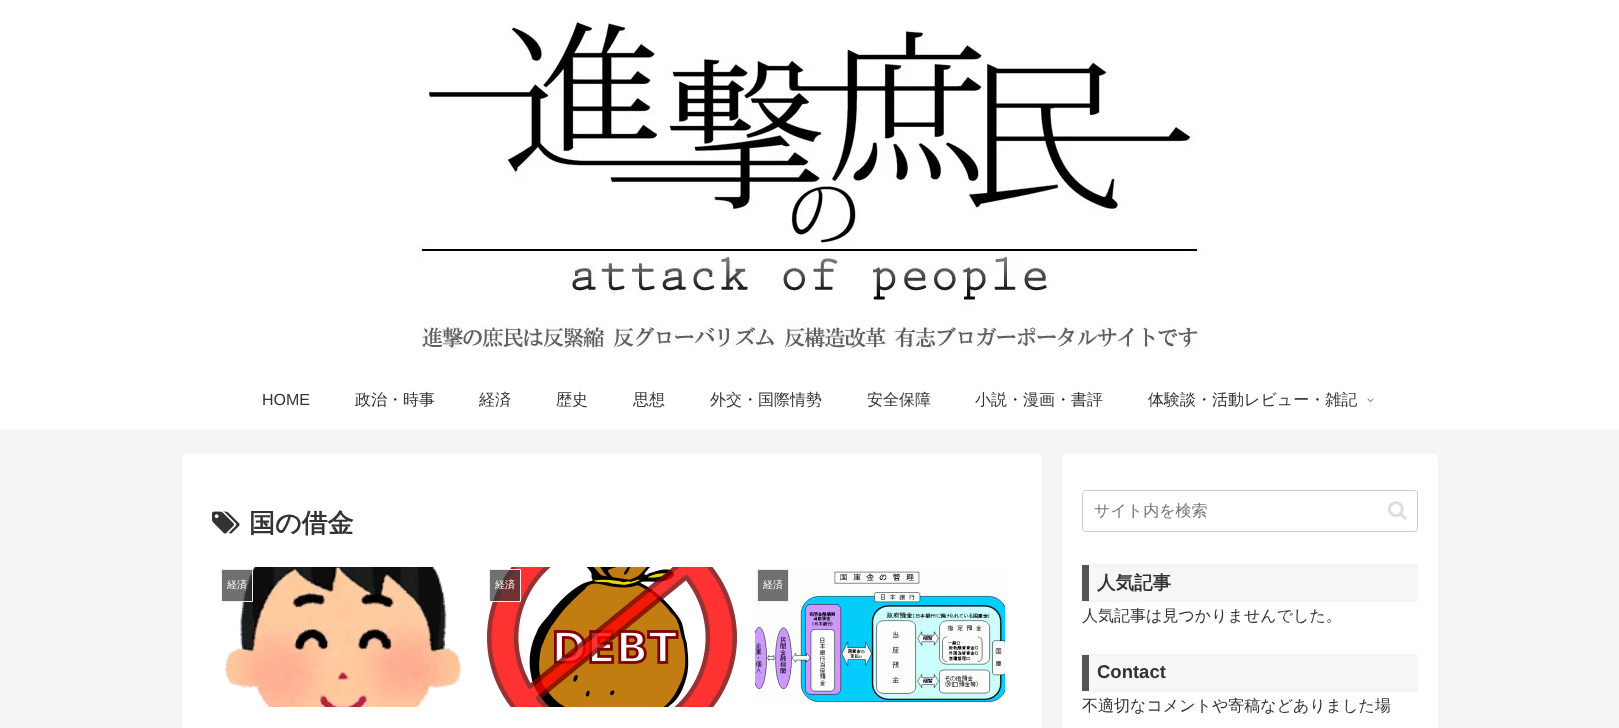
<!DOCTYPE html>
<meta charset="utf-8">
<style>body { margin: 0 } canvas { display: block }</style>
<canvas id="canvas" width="1619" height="728"></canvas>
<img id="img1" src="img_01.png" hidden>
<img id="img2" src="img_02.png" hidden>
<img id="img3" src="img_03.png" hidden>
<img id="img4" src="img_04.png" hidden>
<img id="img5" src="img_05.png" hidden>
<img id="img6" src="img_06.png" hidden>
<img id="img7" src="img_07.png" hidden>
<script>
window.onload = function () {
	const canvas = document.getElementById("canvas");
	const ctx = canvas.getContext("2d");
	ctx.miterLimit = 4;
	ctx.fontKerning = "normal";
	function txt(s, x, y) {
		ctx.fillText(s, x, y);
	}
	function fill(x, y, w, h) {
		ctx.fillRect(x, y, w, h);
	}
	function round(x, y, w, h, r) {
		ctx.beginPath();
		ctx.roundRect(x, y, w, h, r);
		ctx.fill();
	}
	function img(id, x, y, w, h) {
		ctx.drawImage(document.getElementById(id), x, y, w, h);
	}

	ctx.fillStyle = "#F4F5F7";
	fill(0, 0, 1619, 728);
	ctx.fillStyle = "#FFFFFF";
	fill(0, 0, 1619, 430);
	img("img1", 417, 22, 784, 328);
	img("img2", 1367, 398, 7, 5);
	round(182, 454, 860, 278, 4);
	img("img3", 212, 511, 28, 23);
	img("img4", 224, 567, 237, 140);
	ctx.fillStyle = "rgba(51, 51, 51, 0.7)";
	ctx.beginPath();
	ctx.rect(221.5, 569.5, 31, 32);
	ctx.fill();
	ctx.strokeStyle = "#EEEEEE";
	ctx.stroke();
	img("img5", 487, 567, 250, 140);
	ctx.beginPath();
	ctx.rect(489.5, 569.5, 31, 32);
	ctx.fill();
	ctx.stroke();
	img("img6", 755, 571, 250, 132);
	ctx.beginPath();
	ctx.rect(757.5, 569.5, 31, 32);
	ctx.fill();
	ctx.stroke();
	ctx.fillStyle = "#FFFFFF";
	round(1062, 454, 376, 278, 4);
	ctx.beginPath();
	ctx.roundRect(1082.5, 490.5, 335, 41, 3.5);
	ctx.strokeStyle = "#CCCCCC";
	ctx.stroke();
	img("img7", 1388, 501, 19, 19);
	ctx.fillStyle = "#F5F6F7";
	round(1082, 564, 336, 38, 2);
	ctx.fillStyle = "#555555";
	fill(1082, 565, 7, 36);
	ctx.fillStyle = "#F5F6F7";
	round(1082, 654, 336, 38, 2);
	ctx.fillStyle = "#555555";
	fill(1082, 655, 7, 36);
	ctx.font = "16px Liberation Sans";
	ctx.fillStyle = "#333333";
	txt("HOME", 262, 405);
	ctx.font = "500 16px WenQuanYi Zen Hei";
	txt("政治・時事", 355, 405);
	txt("経済", 479, 405);
	txt("歴史", 556, 405);
	txt("思想", 633, 405);
	txt("外交・国際情勢", 710, 405);
	txt("安全保障", 867, 405);
	txt("小説・漫画・書評", 975, 405);
	txt("体験談・活動レビュー・雑記", 1148, 405);
	ctx.font = "bold 26px WenQuanYi Zen Hei";
	txt("国の借金", 249, 532);
	ctx.font = "500 10px WenQuanYi Zen Hei";
	ctx.fillStyle = "#FFFFFF";
	txt("経済", 227, 588);
	txt("経済", 495, 588);
	txt("経済", 763, 588);
	ctx.font = "500 16px WenQuanYi Zen Hei";
	ctx.fillStyle = "#757575";
	txt("サイト内を検索", 1094, 516);
	ctx.font = "bold 18.5px WenQuanYi Zen Hei";
	ctx.fillStyle = "#333333";
	txt("人気記事", 1097, 589);
	ctx.font = "500 16px WenQuanYi Zen Hei";
	txt("人気記事は見つかりませんでした。", 1082, 621);
	ctx.font = "bold 18.5px Liberation Sans";
	txt("Contact", 1097, 678);
	ctx.font = "500 16px WenQuanYi Zen Hei";
	txt("不適切なコメントや寄稿などありました場", 1082, 711);
};
</script>
